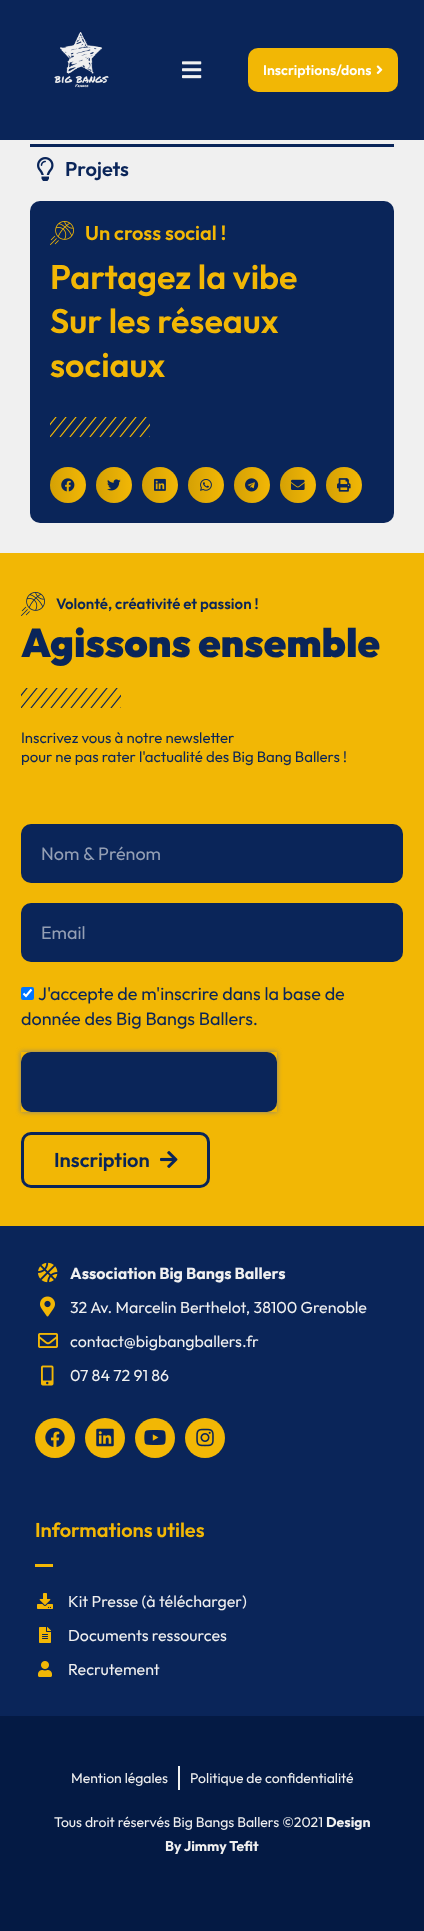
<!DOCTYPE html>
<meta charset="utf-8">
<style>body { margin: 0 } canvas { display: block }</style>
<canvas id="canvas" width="424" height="1931"></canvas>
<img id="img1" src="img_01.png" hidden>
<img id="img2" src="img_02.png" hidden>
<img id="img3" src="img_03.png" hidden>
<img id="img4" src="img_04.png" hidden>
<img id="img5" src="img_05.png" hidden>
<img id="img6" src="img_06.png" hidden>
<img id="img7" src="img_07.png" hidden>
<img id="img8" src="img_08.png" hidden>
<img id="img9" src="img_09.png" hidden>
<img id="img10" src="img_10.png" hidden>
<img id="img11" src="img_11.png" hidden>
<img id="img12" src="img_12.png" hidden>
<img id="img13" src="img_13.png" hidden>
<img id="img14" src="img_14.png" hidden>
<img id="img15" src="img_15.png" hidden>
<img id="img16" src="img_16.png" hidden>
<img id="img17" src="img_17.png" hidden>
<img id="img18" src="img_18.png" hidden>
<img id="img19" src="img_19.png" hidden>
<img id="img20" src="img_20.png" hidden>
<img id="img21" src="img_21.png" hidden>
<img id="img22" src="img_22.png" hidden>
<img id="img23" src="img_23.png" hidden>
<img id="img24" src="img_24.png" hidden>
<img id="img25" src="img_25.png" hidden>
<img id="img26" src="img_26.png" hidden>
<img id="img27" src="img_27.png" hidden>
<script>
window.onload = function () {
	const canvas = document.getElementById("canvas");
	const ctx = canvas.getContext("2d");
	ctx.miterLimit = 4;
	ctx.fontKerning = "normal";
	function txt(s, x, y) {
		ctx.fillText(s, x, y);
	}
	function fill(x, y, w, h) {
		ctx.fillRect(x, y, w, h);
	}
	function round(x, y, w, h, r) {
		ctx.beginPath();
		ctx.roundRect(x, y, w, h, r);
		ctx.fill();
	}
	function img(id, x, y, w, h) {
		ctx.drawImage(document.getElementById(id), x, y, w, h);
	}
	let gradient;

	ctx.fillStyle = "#F0F0F0";
	fill(0, 0, 424, 1931);
	ctx.fillStyle = "#0A2559";
	fill(0, 0, 424, 140);
	img("img1", 54, 32, 55, 56);
	img("img2", 182, 61, 20, 18);
	ctx.fillStyle = "#F2B705";
	round(248, 48, 150, 44, 10);
	img("img3", 376, 65, 7, 10);
	ctx.fillStyle = "#0A2559";
	fill(30, 144, 364, 3);
	img("img4", 37, 157, 17, 24);
	round(30, 201, 364, 322, 10);
	img("img5", 50, 221, 24, 24);
	img("img6", 50, 417, 100, 20);
	ctx.fillStyle = "#F2B705";
	ctx.beginPath();
	ctx.arc(68, 485, 18, 0, Math.PI * 2);
	ctx.fill();
	gradient = ctx.createLinearGradient(50, 485, 86, 485);
	gradient.addColorStop(0, "rgba(0, 0, 0, 0.12)");
	gradient.addColorStop(1, "rgba(0, 0, 0, 0)");
	ctx.fillStyle = gradient;
	ctx.beginPath();
	ctx.arc(68, 485, 18, 0, Math.PI * 2);
	ctx.fill();
	img("img7", 61, 478, 14, 14);
	ctx.fillStyle = "#F2B705";
	ctx.beginPath();
	ctx.arc(114, 485, 18, 0, Math.PI * 2);
	ctx.fill();
	gradient = ctx.createLinearGradient(96, 485, 132, 485);
	gradient.addColorStop(0, "rgba(0, 0, 0, 0.12)");
	gradient.addColorStop(1, "rgba(0, 0, 0, 0)");
	ctx.fillStyle = gradient;
	ctx.beginPath();
	ctx.arc(114, 485, 18, 0, Math.PI * 2);
	ctx.fill();
	img("img8", 107, 479, 14, 12);
	ctx.fillStyle = "#F2B705";
	ctx.beginPath();
	ctx.arc(160, 485, 18, 0, Math.PI * 2);
	ctx.fill();
	gradient = ctx.createLinearGradient(142, 485, 178, 485);
	gradient.addColorStop(0, "rgba(0, 0, 0, 0.12)");
	gradient.addColorStop(1, "rgba(0, 0, 0, 0)");
	ctx.fillStyle = gradient;
	ctx.beginPath();
	ctx.arc(160, 485, 18, 0, Math.PI * 2);
	ctx.fill();
	img("img9", 154, 478, 12, 13);
	ctx.fillStyle = "#F2B705";
	ctx.beginPath();
	ctx.arc(206, 485, 18, 0, Math.PI * 2);
	ctx.fill();
	gradient = ctx.createLinearGradient(188, 485, 224, 485);
	gradient.addColorStop(0, "rgba(0, 0, 0, 0.12)");
	gradient.addColorStop(1, "rgba(0, 0, 0, 0)");
	ctx.fillStyle = gradient;
	ctx.beginPath();
	ctx.arc(206, 485, 18, 0, Math.PI * 2);
	ctx.fill();
	img("img10", 200, 479, 12, 12);
	ctx.fillStyle = "#F2B705";
	ctx.beginPath();
	ctx.arc(252, 485, 18, 0, Math.PI * 2);
	ctx.fill();
	gradient = ctx.createLinearGradient(234, 485, 270, 485);
	gradient.addColorStop(0, "rgba(0, 0, 0, 0.12)");
	gradient.addColorStop(1, "rgba(0, 0, 0, 0)");
	ctx.fillStyle = gradient;
	ctx.beginPath();
	ctx.arc(252, 485, 18, 0, Math.PI * 2);
	ctx.fill();
	img("img11", 245, 478, 14, 14);
	ctx.fillStyle = "#F2B705";
	ctx.beginPath();
	ctx.arc(298, 485, 18, 0, Math.PI * 2);
	ctx.fill();
	gradient = ctx.createLinearGradient(280, 485, 316, 485);
	gradient.addColorStop(0, "rgba(0, 0, 0, 0.12)");
	gradient.addColorStop(1, "rgba(0, 0, 0, 0)");
	ctx.fillStyle = gradient;
	ctx.beginPath();
	ctx.arc(298, 485, 18, 0, Math.PI * 2);
	ctx.fill();
	img("img12", 291, 479, 14, 11);
	ctx.fillStyle = "#F2B705";
	ctx.beginPath();
	ctx.arc(344, 485, 18, 0, Math.PI * 2);
	ctx.fill();
	gradient = ctx.createLinearGradient(326, 485, 362, 485);
	gradient.addColorStop(0, "rgba(0, 0, 0, 0.12)");
	gradient.addColorStop(1, "rgba(0, 0, 0, 0)");
	ctx.fillStyle = gradient;
	ctx.beginPath();
	ctx.arc(344, 485, 18, 0, Math.PI * 2);
	ctx.fill();
	img("img13", 337, 478, 14, 14);
	ctx.fillStyle = "#F2B705";
	fill(0, 553, 424, 673);
	img("img14", 21, 592, 24, 24);
	img("img15", 21, 688, 100, 20);
	ctx.fillStyle = "#0A2559";
	round(21, 824, 382, 59, 10);
	round(21, 903, 382, 59, 10);
	ctx.fillStyle = "#0075FF";
	round(21, 987, 13, 13, 2);
	ctx.beginPath();
	ctx.moveTo(23.5, 993.5);
	ctx.lineTo(26, 996);
	ctx.lineTo(31.5, 989.5);
	ctx.strokeStyle = "#FFFFFF";
	ctx.lineWidth = 2.1;
	ctx.stroke();
	ctx.fillStyle = "#0A2559";
	round(21, 1052, 256, 60, 10);
	ctx.save();
	ctx.beginPath();
	ctx.moveTo(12, 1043);
	ctx.lineTo(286, 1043);
	ctx.lineTo(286, 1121);
	ctx.lineTo(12, 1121);
	ctx.closePath();
	ctx.moveTo(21, 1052);
	ctx.lineTo(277, 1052);
	ctx.lineTo(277, 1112);
	ctx.lineTo(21, 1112);
	ctx.closePath();
	ctx.clip("evenodd");
	ctx.fillStyle = "#808080";
	ctx.filter = "blur(2.5px)";
	ctx.beginPath();
	ctx.rect(21, 1052, 256, 60);
	ctx.fill();
	ctx.filter = "none";
	ctx.restore();
	ctx.beginPath();
	ctx.roundRect(22.5, 1133.5, 186, 53, 8.5);
	ctx.strokeStyle = "#0A2559";
	ctx.lineWidth = 3;
	ctx.stroke();
	img("img16", 160, 1151, 18, 17);
	fill(0, 1226, 424, 490);
	img("img17", 38, 1262, 20, 21);
	img("img18", 40, 1296, 15, 21);
	img("img19", 38, 1333, 20, 15);
	img("img20", 41, 1365, 13, 21);
	ctx.fillStyle = "#F2B705";
	ctx.beginPath();
	ctx.arc(55, 1438, 20, 0, Math.PI * 2);
	ctx.fill();
	img("img21", 45, 1427, 20, 20);
	ctx.beginPath();
	ctx.arc(105, 1438, 20, 0, Math.PI * 2);
	ctx.fill();
	img("img22", 96, 1428, 18, 19);
	ctx.beginPath();
	ctx.arc(155, 1438, 20, 0, Math.PI * 2);
	ctx.fill();
	img("img23", 144, 1430, 22, 15);
	ctx.beginPath();
	ctx.arc(205, 1438, 20, 0, Math.PI * 2);
	ctx.fill();
	img("img24", 196, 1428, 18, 19);
	fill(35, 1564, 18, 3);
	img("img25", 37, 1593, 16, 16);
	img("img26", 39, 1627, 12, 16);
	img("img27", 38, 1661, 14, 16);
	ctx.fillStyle = "#041A44";
	fill(0, 1716, 424, 215);
	ctx.fillStyle = "#F0F0F0";
	fill(178, 1766, 2, 24);
	ctx.font = "600 14px Outfit";
	ctx.fillStyle = "#FFFFFF";
	txt("Inscriptions/dons", 263, 75);
	ctx.font = "600 20px Outfit";
	ctx.fillStyle = "#0A2559";
	txt("Projets", 65, 176);
	ctx.fillStyle = "#F2B705";
	txt("Un cross social !", 85, 240);
	ctx.font = "600 34px Outfit";
	txt("Partagez la vibe", 50, 289);
	txt("Sur les réseaux", 50, 333);
	txt("sociaux", 50, 377);
	ctx.font = "600 15px Outfit";
	ctx.fillStyle = "#0A2559";
	txt("Volonté, créativité et passion !", 56, 609);
	ctx.font = "900 40px Outfit";
	txt("Agissons ensemble", 21, 657);
	ctx.font = "15px Outfit";
	txt("Inscrivez vous à notre newsletter", 21, 743);
	txt("pour ne pas rater l'actualité des Big Bang Ballers !", 21, 762);
	ctx.font = "18px Outfit";
	ctx.fillStyle = "#949FB4";
	txt("Nom & Prénom", 41, 860);
	txt("Email", 41, 939);
	ctx.fillStyle = "#0A2559";
	txt("J'accepte de m'inscrire dans la base de", 38, 1000);
	txt("donnée des Big Bangs Ballers.", 21, 1025);
	ctx.font = "600 20px Outfit";
	txt("Inscription", 54, 1167);
	ctx.font = "bold 16px Outfit";
	ctx.fillStyle = "#F0F0F0";
	txt("Association Big Bangs Ballers", 70, 1279);
	ctx.font = "16px Outfit";
	txt("32 Av. Marcelin Berthelot, 38100 Grenoble", 70, 1313);
	txt("contact@bigbangballers.fr", 70, 1347);
	txt("07 84 72 91 86", 70, 1381);
	ctx.font = "600 20px Outfit";
	ctx.fillStyle = "#F2B705";
	txt("Informations utiles", 35, 1537);
	ctx.font = "16px Outfit";
	ctx.fillStyle = "#F0F0F0";
	txt("Kit Presse (à télécharger)", 68, 1607);
	txt("Documents ressources", 68, 1641);
	txt("Recrutement", 68, 1675);
	ctx.font = "14px Outfit";
	txt("Mention légales", 71, 1783);
	txt("Politique de confidentialité", 190, 1783);
	txt("Tous droit réservés Big Bangs Ballers ©2021", 54, 1827);
	ctx.font = "bold 14px Outfit";
	txt("Design", 326, 1827);
	txt("By Jimmy Tefit", 165, 1851);
};
</script>
